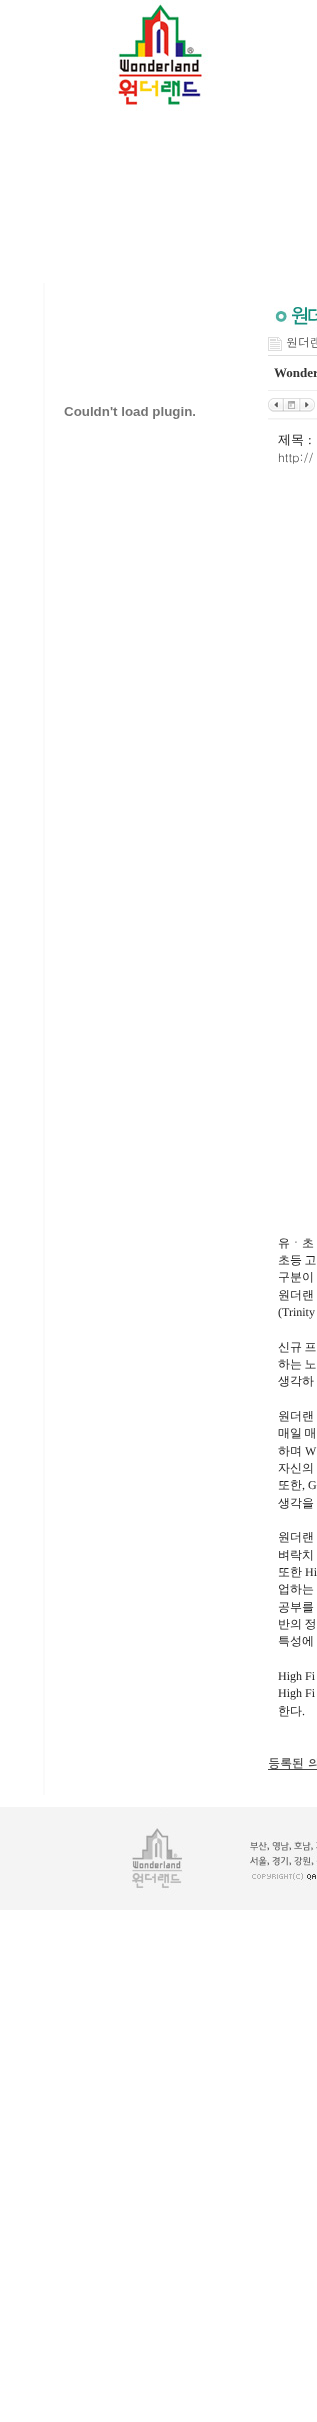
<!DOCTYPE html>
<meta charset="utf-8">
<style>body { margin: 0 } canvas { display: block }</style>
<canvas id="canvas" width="317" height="2422"></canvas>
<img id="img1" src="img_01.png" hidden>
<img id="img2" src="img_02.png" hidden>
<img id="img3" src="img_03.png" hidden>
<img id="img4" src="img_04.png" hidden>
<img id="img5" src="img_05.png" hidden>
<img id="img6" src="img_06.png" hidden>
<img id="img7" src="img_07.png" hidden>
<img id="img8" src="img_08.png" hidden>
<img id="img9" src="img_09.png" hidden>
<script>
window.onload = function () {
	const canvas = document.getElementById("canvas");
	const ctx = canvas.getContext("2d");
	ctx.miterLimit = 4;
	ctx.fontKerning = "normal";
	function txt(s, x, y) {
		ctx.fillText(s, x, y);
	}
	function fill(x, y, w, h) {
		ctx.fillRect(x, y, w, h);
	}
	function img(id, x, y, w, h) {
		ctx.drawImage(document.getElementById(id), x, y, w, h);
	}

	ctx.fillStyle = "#FFFFFF";
	fill(0, 0, 317, 2422);
	img("img1", 112, 0, 96, 111);
	ctx.fillStyle = "#FAFAFA";
	fill(43, 283, 2, 1512);
	img("img2", 64, 407, 131, 12);
	img("img3", 274, 307, 43, 24);
	img("img4", 268, 337, 14, 14);
	ctx.fillStyle = "#DDDDDD";
	fill(268, 355, 49, 1);
	ctx.fillStyle = "#EEEEEE";
	fill(268, 390, 49, 1);
	img("img5", 268, 398, 15, 14);
	img("img6", 283, 398, 17, 14);
	img("img7", 300, 398, 15, 14);
	img("img8", 268, 418, 49, 2);
	ctx.fillStyle = "#454545";
	fill(268, 1769, 49, 1);
	img("img9", 0, 1807, 317, 103);
	ctx.font = "12px Dotum";
	txt("원더랜", 286, 347);
	ctx.font = "bold 13px Liberation Serif";
	ctx.fillStyle = "#333333";
	txt("Wonder", 274, 377);
	ctx.font = "500 13px WenQuanYi Zen Hei";
	ctx.fillStyle = "#222222";
	txt("제목", 278, 444);
	ctx.font = "13px Liberation Serif";
	txt(":", 308, 444);
	ctx.font = "12px Dotum";
	ctx.fillStyle = "#454545";
	txt("http://", 278, 462);
	ctx.font = "500 12px WenQuanYi Zen Hei";
	ctx.fillStyle = "#222222";
	txt("유ㆍ", 278, 1247);
	ctx.wordSpacing = "-1px";
	txt("초", 302, 1247);
	txt("초등 고", 278, 1264);
	txt("구분이", 278, 1281);
	txt("원더랜", 278, 1299);
	ctx.wordSpacing = "0px";
	ctx.font = "12px Liberation Serif";
	txt("(Trinity", 278, 1316);
	ctx.wordSpacing = "-1px";
	ctx.font = "500 12px WenQuanYi Zen Hei";
	txt("신규 프", 278, 1351);
	txt("하는 노", 278, 1368);
	txt("생각하", 278, 1385);
	ctx.wordSpacing = "0px";
	txt("원더랜", 278, 1420);
	ctx.wordSpacing = "-1px";
	txt("매일 매", 278, 1437);
	ctx.wordSpacing = "0px";
	txt("하며", 278, 1455);
	ctx.font = "12px Liberation Serif";
	txt("W", 305, 1455);
	ctx.wordSpacing = "-1px";
	ctx.font = "500 12px WenQuanYi Zen Hei";
	txt("자신의", 278, 1472);
	ctx.wordSpacing = "0px";
	txt("또한", 278, 1489);
	ctx.font = "12px Liberation Serif";
	txt(", G", 302, 1489);
	ctx.wordSpacing = "-1px";
	ctx.font = "500 12px WenQuanYi Zen Hei";
	txt("생각을", 278, 1507);
	ctx.wordSpacing = "0px";
	txt("원더랜", 278, 1541);
	ctx.wordSpacing = "-1px";
	txt("벼락치", 278, 1559);
	ctx.wordSpacing = "0px";
	txt("또한", 278, 1576);
	ctx.font = "12px Liberation Serif";
	txt("Hi", 305, 1576);
	ctx.wordSpacing = "-1px";
	ctx.font = "500 12px WenQuanYi Zen Hei";
	txt("업하는", 278, 1593);
	txt("공부를", 278, 1611);
	txt("반의 정", 278, 1628);
	txt("특성에", 278, 1645);
	ctx.wordSpacing = "0px";
	ctx.font = "12px Liberation Serif";
	txt("High Fi", 278, 1680);
	txt("High Fi", 278, 1697);
	ctx.font = "500 12px WenQuanYi Zen Hei";
	txt("한다", 278, 1715);
	ctx.font = "12px Liberation Serif";
	txt(".", 302, 1715);
	ctx.font = "bold 12px Dotum";
	ctx.fillStyle = "#515151";
	txt("등록된 의", 268, 1768);
};
</script>
